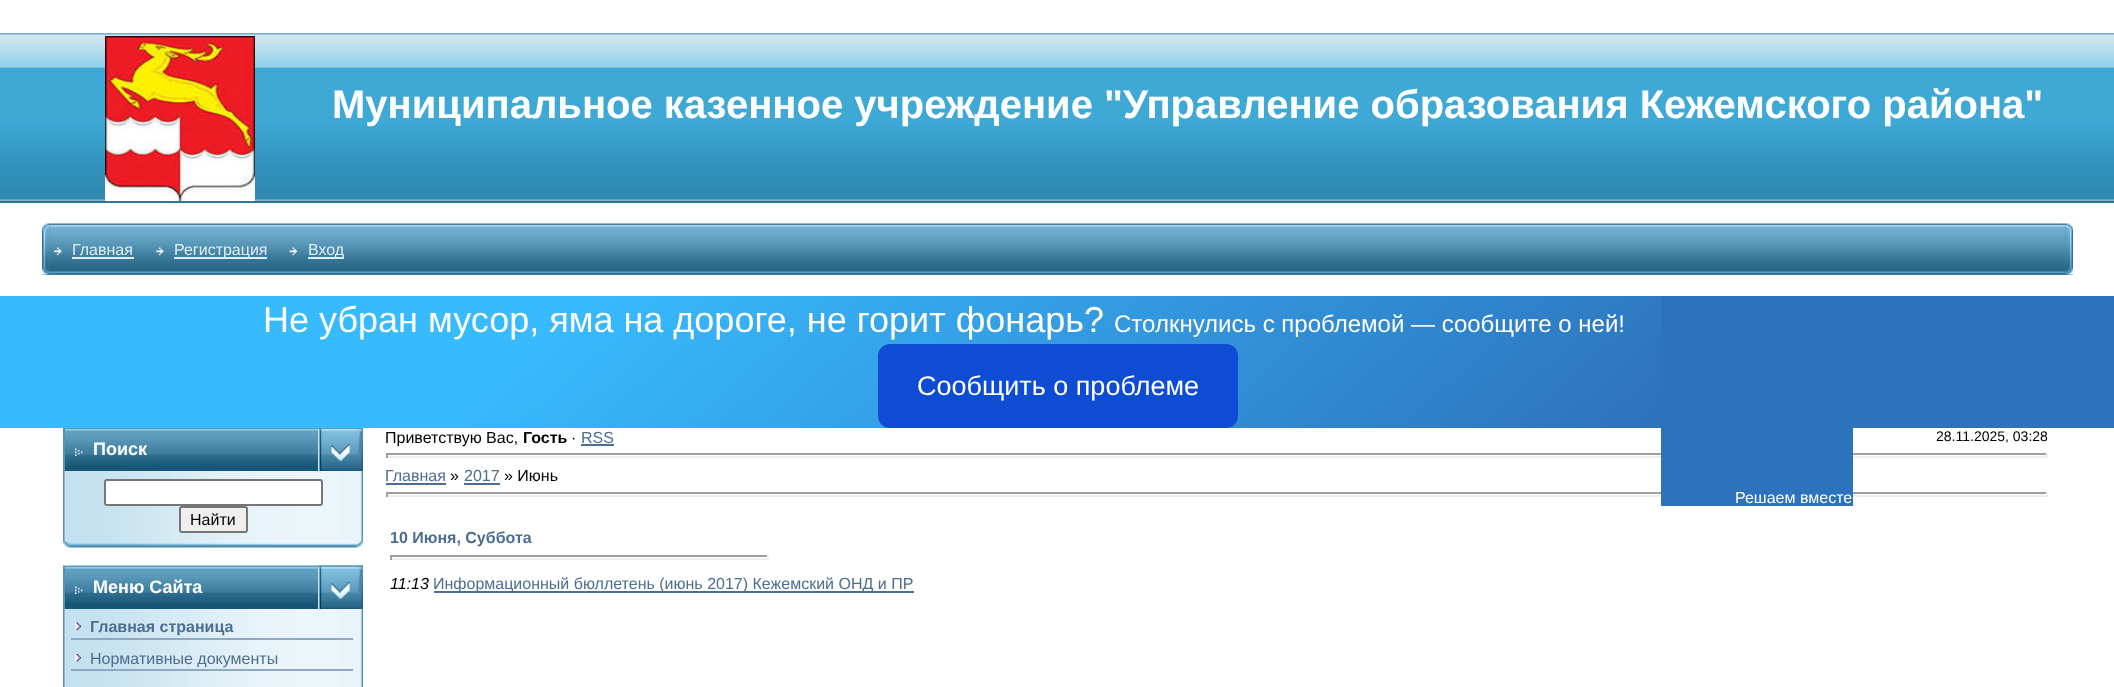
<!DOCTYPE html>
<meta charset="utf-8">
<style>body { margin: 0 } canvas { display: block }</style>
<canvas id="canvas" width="2114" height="687"></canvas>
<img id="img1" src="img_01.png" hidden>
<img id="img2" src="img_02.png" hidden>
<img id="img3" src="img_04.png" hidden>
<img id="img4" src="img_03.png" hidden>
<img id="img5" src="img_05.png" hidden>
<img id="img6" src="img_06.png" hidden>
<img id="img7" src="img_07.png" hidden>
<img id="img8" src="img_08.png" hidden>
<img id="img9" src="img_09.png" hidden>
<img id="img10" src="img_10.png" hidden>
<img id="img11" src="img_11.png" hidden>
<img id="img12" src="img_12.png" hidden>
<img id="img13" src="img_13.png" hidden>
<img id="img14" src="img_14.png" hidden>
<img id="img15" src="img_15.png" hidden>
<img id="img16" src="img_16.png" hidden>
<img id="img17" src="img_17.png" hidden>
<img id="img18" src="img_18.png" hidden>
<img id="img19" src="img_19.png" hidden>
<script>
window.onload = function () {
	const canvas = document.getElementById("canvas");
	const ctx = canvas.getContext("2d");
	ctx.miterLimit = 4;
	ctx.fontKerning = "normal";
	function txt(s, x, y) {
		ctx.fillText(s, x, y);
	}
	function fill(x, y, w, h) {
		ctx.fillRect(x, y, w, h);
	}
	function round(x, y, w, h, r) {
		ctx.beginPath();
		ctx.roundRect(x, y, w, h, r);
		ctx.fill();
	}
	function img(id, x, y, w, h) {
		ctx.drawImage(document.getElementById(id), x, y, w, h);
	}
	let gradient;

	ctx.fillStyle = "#FFFFFF";
	fill(0, 0, 2114, 687);
	ctx.fillStyle = "#318EB7";
	fill(0, 202, 2114, 1);
	img("img1", 0, 33, 2114, 170);
	img("img2", 105, 36, 150, 165);
	fill(42, 224, 8, 51);
	fill(50, 274, 1411, 1);
	img("img3", 49, 223, 1412, 52);
	img("img4", 42, 223, 8, 52);
	img("img5", 53, 247, 9, 9);
	ctx.fillStyle = "#DDEEF7";
	fill(72, 257, 62, 2);
	img("img5", 155, 247, 9, 9);
	fill(174, 257, 93, 2);
	img("img6", 289, 247, 9, 9);
	fill(308, 257, 36, 2);
	ctx.fillStyle = "#318EB7";
	fill(1461, 224, 605, 51);
	img("img7", 1461, 223, 605, 52);
	fill(2066, 274, 7, 1);
	img("img8", 2065, 223, 8, 52);
	gradient = ctx.createLinearGradient(559, -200, 1556, 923);
	gradient.addColorStop(0.26, "#38BAFE");
	gradient.addColorStop(0.79, "#2D73BC");
	ctx.fillStyle = gradient;
	fill(0, 296, 2114, 132);
	ctx.fillStyle = "#0D4CD3";
	round(878, 344, 360, 84, 12);
	ctx.fillStyle = "#9F9F9F";
	fill(386, 453, 1662, 2);
	ctx.fillStyle = "#EEEEEE";
	fill(2046, 453, 2, 5);
	fill(386, 456, 1662, 2);
	ctx.fillStyle = "#9F9F9F";
	fill(386, 492, 1662, 2);
	ctx.fillStyle = "#EEEEEE";
	fill(2046, 492, 2, 5);
	fill(386, 495, 1662, 2);
	ctx.fillStyle = "#2D73BC";
	fill(1661, 296, 192, 210);
	img("img9", 65, 428, 253, 43);
	ctx.fillStyle = "#5694B5";
	fill(63, 428, 2, 43);
	img("img10", 75, 448, 8, 8);
	img("img11", 318, 428, 45, 43);
	img("img12", 63, 471, 300, 69);
	ctx.fillStyle = "#FFFFFF";
	ctx.beginPath();
	ctx.roundRect(105, 480, 217, 25, 2);
	ctx.fill();
	ctx.strokeStyle = "#767676";
	ctx.lineWidth = 2;
	ctx.stroke();
	ctx.fillStyle = "#EFEFEF";
	ctx.beginPath();
	ctx.roundRect(180, 507, 67, 25, 2);
	ctx.fill();
	ctx.stroke();
	img("img13", 63, 540, 300, 8);
	img("img14", 63, 565, 255, 44);
	ctx.fillStyle = "#5694B5";
	fill(63, 566, 2, 43);
	img("img10", 75, 586, 8, 8);
	img("img15", 318, 565, 45, 1);
	img("img16", 318, 565, 45, 44);
	img("img17", 63, 609, 300, 78);
	img("img18", 75, 622, 6, 8);
	ctx.fillStyle = "#8EA8C4";
	fill(71, 638, 282, 2);
	img("img19", 75, 654, 6, 8);
	fill(71, 669, 282, 2);
	ctx.fillStyle = "#4D6D91";
	fill(581, 444, 33, 2);
	ctx.fillStyle = "#9F9F9F";
	fill(386, 453, 2, 5);
	ctx.fillStyle = "#4D6D91";
	fill(386, 483, 60, 2);
	fill(464, 483, 36, 2);
	ctx.fillStyle = "#9F9F9F";
	fill(386, 492, 2, 5);
	fill(390, 555, 378, 2);
	ctx.fillStyle = "#EEEEEE";
	fill(767, 555, 2, 5);
	fill(390, 558, 378, 2);
	ctx.fillStyle = "#9F9F9F";
	fill(390, 555, 2, 5);
	ctx.fillStyle = "#4D6D91";
	fill(434, 591, 480, 2);
	ctx.font = "bold 40px Liberation Sans";
	ctx.fillStyle = "#FFFFFF";
	txt("Муниципальное казенное учреждение \"Управление образования Кежемского района\"", 332, 118);
	ctx.font = "16px Liberation Sans";
	ctx.fillStyle = "#DDEEF7";
	txt("Главная", 72, 255);
	txt("Регистрация", 174, 255);
	txt("Вход", 308, 255);
	ctx.font = "36px Liberation Sans";
	ctx.fillStyle = "#FFFFFF";
	txt("Не убран мусор, яма на дороге, не горит фонарь?", 263, 332);
	ctx.font = "24px Liberation Sans";
	txt("Столкнулись с проблемой — сообщите о ней!", 1114, 332);
	ctx.font = "27px Liberation Sans";
	txt("Сообщить о проблеме", 917, 395);
	ctx.font = "16px Liberation Sans";
	txt("Решаем вместе", 1735, 503);
	ctx.font = "bold 18px Liberation Sans";
	txt("Поиск", 93, 455);
	ctx.font = "16px Liberation Sans";
	ctx.fillStyle = "#000000";
	txt("Найти", 190, 525);
	ctx.font = "bold 18px Liberation Sans";
	ctx.fillStyle = "#FFFFFF";
	txt("Меню Сайта", 93, 593);
	ctx.font = "bold 16px Liberation Sans";
	ctx.fillStyle = "#4D6D91";
	txt("Главная страница", 90, 632);
	ctx.font = "16px Liberation Sans";
	txt("Нормативные документы", 90, 664);
	ctx.fillStyle = "#000000";
	txt("Приветствую Вас,", 385, 443);
	ctx.font = "bold 16px Liberation Sans";
	txt("Гость", 523, 443);
	ctx.font = "16px Liberation Sans";
	txt("·", 571, 443);
	ctx.fillStyle = "#4D6D91";
	txt("RSS", 581, 443);
	ctx.font = "14px Liberation Sans";
	ctx.fillStyle = "#000000";
	txt("28.11.2025, 03:28", 1936, 441);
	ctx.font = "16px Liberation Sans";
	ctx.fillStyle = "#4D6D91";
	txt("Главная", 385, 481);
	ctx.fillStyle = "#000000";
	txt("»", 450, 481);
	ctx.fillStyle = "#4D6D91";
	txt("2017", 464, 481);
	ctx.fillStyle = "#000000";
	txt("» Июнь", 504, 481);
	ctx.font = "bold 16px Liberation Sans";
	ctx.fillStyle = "#4D6D91";
	txt("10 Июня, Суббота", 390, 543);
	ctx.font = "italic 16px Liberation Sans";
	ctx.fillStyle = "#000000";
	txt("11:13", 390, 589);
	ctx.font = "16px Liberation Sans";
	ctx.fillStyle = "#4D6D91";
	txt("Информационный бюллетень (июнь 2017) Кежемский ОНД и ПР", 433, 589);
};
</script>
